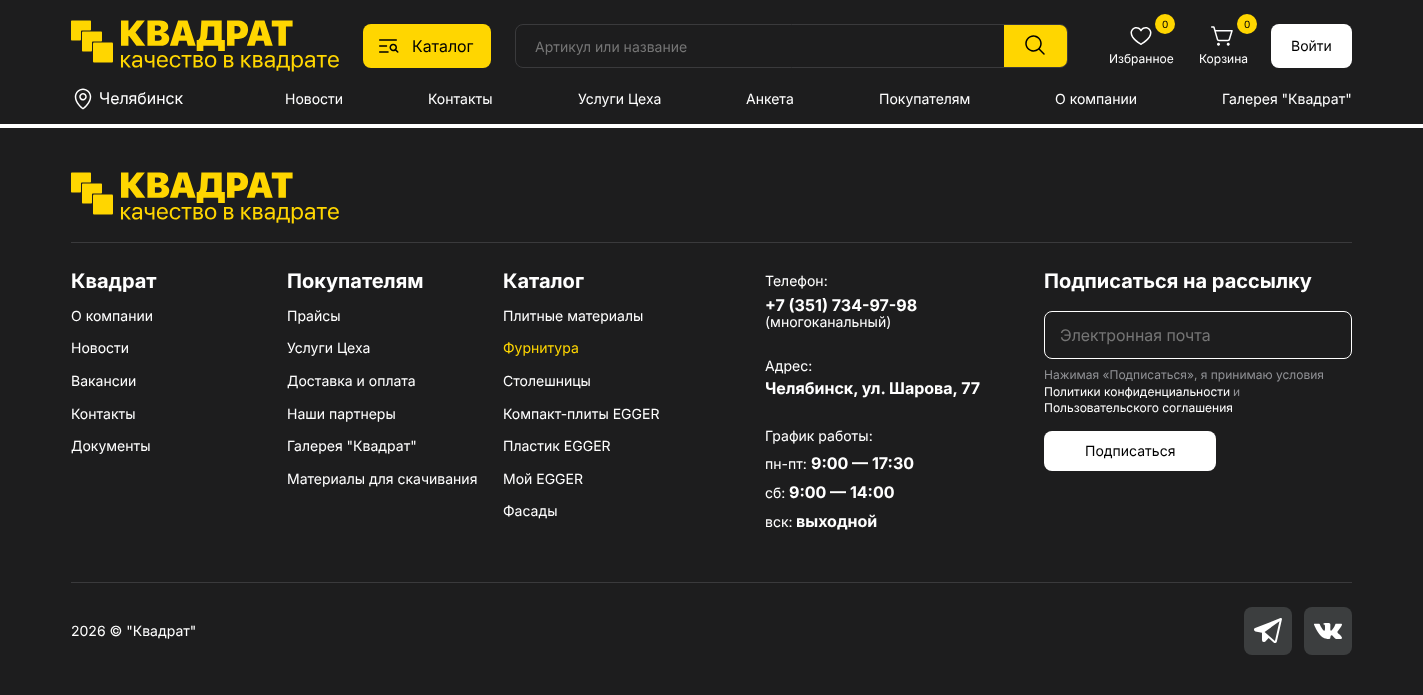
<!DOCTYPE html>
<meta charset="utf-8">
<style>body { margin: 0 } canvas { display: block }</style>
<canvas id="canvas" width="1423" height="695"></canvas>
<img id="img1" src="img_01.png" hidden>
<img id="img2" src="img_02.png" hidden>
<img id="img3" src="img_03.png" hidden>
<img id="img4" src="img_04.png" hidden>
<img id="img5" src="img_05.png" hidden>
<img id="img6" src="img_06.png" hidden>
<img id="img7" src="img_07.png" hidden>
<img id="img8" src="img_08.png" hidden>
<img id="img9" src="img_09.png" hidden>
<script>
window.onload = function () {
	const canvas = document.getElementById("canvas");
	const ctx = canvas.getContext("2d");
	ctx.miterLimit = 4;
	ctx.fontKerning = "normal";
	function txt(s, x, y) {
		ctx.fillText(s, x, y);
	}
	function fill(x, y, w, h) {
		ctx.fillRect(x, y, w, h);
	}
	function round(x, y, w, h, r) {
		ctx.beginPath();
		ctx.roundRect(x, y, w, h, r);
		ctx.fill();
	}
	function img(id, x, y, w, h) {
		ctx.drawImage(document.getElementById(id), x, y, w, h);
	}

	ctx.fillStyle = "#FFFFFF";
	fill(0, 0, 1423, 695);
	ctx.fillStyle = "#1D1D1E";
	fill(0, 0, 1423, 124);
	img("img1", 71, 20, 268, 52);
	ctx.fillStyle = "#FFD600";
	round(363, 24, 128, 44, 8);
	img("img2", 379, 39, 20, 14);
	ctx.beginPath();
	ctx.roundRect(515.5, 24.5, 552, 43, 7.5);
	ctx.strokeStyle = "#3A3A3C";
	ctx.stroke();
	ctx.beginPath();
	ctx.roundRect(1004, 25, 63, 42, [0, 7, 7, 0]);
	ctx.fill();
	img("img3", 1025, 35, 20, 20);
	ctx.beginPath();
	ctx.arc(1165, 24, 10, 0, Math.PI * 2);
	ctx.fill();
	img("img4", 1130, 27, 22, 18);
	ctx.beginPath();
	ctx.arc(1247, 24, 10, 0, Math.PI * 2);
	ctx.fill();
	img("img5", 1211, 26, 22, 20);
	ctx.fillStyle = "#FFFFFF";
	round(1271, 24, 81, 44, 8);
	img("img6", 74, 88, 18, 22);
	ctx.fillStyle = "#1D1D1E";
	fill(0, 128, 1423, 567);
	ctx.fillStyle = "#3A3A3C";
	fill(71, 242, 1281, 1);
	img("img7", 71, 172, 268, 52);
	ctx.beginPath();
	ctx.roundRect(1044.5, 311.5, 307, 47, 7.5);
	ctx.strokeStyle = "#FFFFFF";
	ctx.stroke();
	ctx.fillStyle = "#FFFFFF";
	round(1044, 431, 172, 40, 8);
	ctx.fillStyle = "#3A3A3C";
	fill(71, 582, 1281, 1);
	ctx.fillStyle = "#3C3E3F";
	round(1244, 607, 48, 48, 8);
	img("img8", 1254, 618, 28, 25);
	round(1304, 607, 48, 48, 8);
	img("img9", 1314, 623, 28, 16);
	ctx.font = "16px 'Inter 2'";
	ctx.fillStyle = "#000000";
	txt("Каталог", 412, 52);
	ctx.font = "14px Inter";
	ctx.fillStyle = "#757575";
	txt("Артикул или название", 535, 52);
	ctx.font = "10px Inter";
	ctx.fillStyle = "#000000";
	txt("0", 1162, 28);
	ctx.font = "12px Inter";
	ctx.fillStyle = "#FFFFFF";
	txt("Избранное", 1109, 63);
	ctx.font = "10px Inter";
	ctx.fillStyle = "#000000";
	txt("0", 1244, 28);
	ctx.font = "12px Inter";
	ctx.fillStyle = "#FFFFFF";
	txt("Корзина", 1199, 63);
	ctx.font = "14px Inter";
	ctx.fillStyle = "#000000";
	txt("Войти", 1291, 51);
	ctx.font = "16px 'Inter 2'";
	ctx.fillStyle = "#FFFFFF";
	txt("Челябинск", 99, 104);
	ctx.font = "14px Inter";
	txt("Новости", 285, 104);
	txt("Контакты", 428, 104);
	txt("Услуги Цеха", 578, 104);
	txt("Анкета", 746, 104);
	txt("Покупателям", 879, 104);
	txt("О компании", 1055, 104);
	txt("Галерея \"Квадрат\"", 1222, 104);
	ctx.font = "bold 20px Inter";
	txt("Квадрат", 71, 288);
	ctx.font = "14px Inter";
	txt("О компании", 71, 321);
	txt("Новости", 71, 353);
	txt("Вакансии", 71, 386);
	txt("Контакты", 71, 419);
	txt("Документы", 71, 451);
	ctx.font = "bold 20px Inter";
	txt("Покупателям", 287, 288);
	ctx.font = "14px Inter";
	txt("Прайсы", 287, 321);
	txt("Услуги Цеха", 287, 353);
	txt("Доставка и оплата", 287, 386);
	txt("Наши партнеры", 287, 419);
	txt("Галерея \"Квадрат\"", 287, 451);
	txt("Материалы для скачивания", 287, 484);
	ctx.font = "bold 20px Inter";
	txt("Каталог", 503, 288);
	ctx.font = "14px Inter";
	txt("Плитные материалы", 503, 321);
	ctx.fillStyle = "#FFD600";
	txt("Фурнитура", 503, 353);
	ctx.fillStyle = "#FFFFFF";
	txt("Столешницы", 503, 386);
	txt("Компакт-плиты EGGER", 503, 419);
	txt("Пластик EGGER", 503, 451);
	txt("Мой EGGER", 503, 484);
	txt("Фасады", 503, 516);
	txt("Телефон:", 765, 286);
	ctx.font = "bold 16px Inter";
	txt("+7 (351) 734-97-98", 765, 311);
	ctx.font = "14px Inter";
	txt("(многоканальный)", 765, 327);
	txt("Адрес:", 765, 371);
	ctx.font = "bold 16px Inter";
	txt("Челябинск, ул. Шарова, 77", 765, 394);
	ctx.font = "14px Inter";
	txt("График работы:", 765, 441);
	txt("пн-пт:", 765, 469);
	ctx.font = "bold 16px Inter";
	txt("9:00 — 17:30", 811, 469);
	ctx.font = "14px Inter";
	txt("сб:", 765, 498);
	ctx.font = "bold 16px Inter";
	txt("9:00 — 14:00", 789, 498);
	ctx.font = "14px Inter";
	txt("вск:", 765, 527);
	ctx.font = "bold 16px Inter";
	txt("выходной", 796, 527);
	ctx.font = "bold 20px Inter";
	txt("Подписаться на рассылку", 1044, 288);
	ctx.font = "16px 'Inter 2'";
	ctx.fillStyle = "#757575";
	txt("Электронная почта", 1060, 341);
	ctx.font = "12px Inter";
	ctx.fillStyle = "#919296";
	txt("Нажимая «Подписаться», я принимаю условия", 1044, 379);
	ctx.fillStyle = "#FFFFFF";
	txt("Политики конфиденциальности", 1044, 396);
	ctx.fillStyle = "#919296";
	txt("и", 1233, 396);
	ctx.fillStyle = "#FFFFFF";
	txt("Пользовательского соглашения", 1044, 412);
	ctx.font = "14px Inter";
	ctx.fillStyle = "#000000";
	txt("Подписаться", 1085, 456);
	ctx.fillStyle = "#FFFFFF";
	txt("2026 © \"Квадрат\"", 71, 636);
};
</script>
